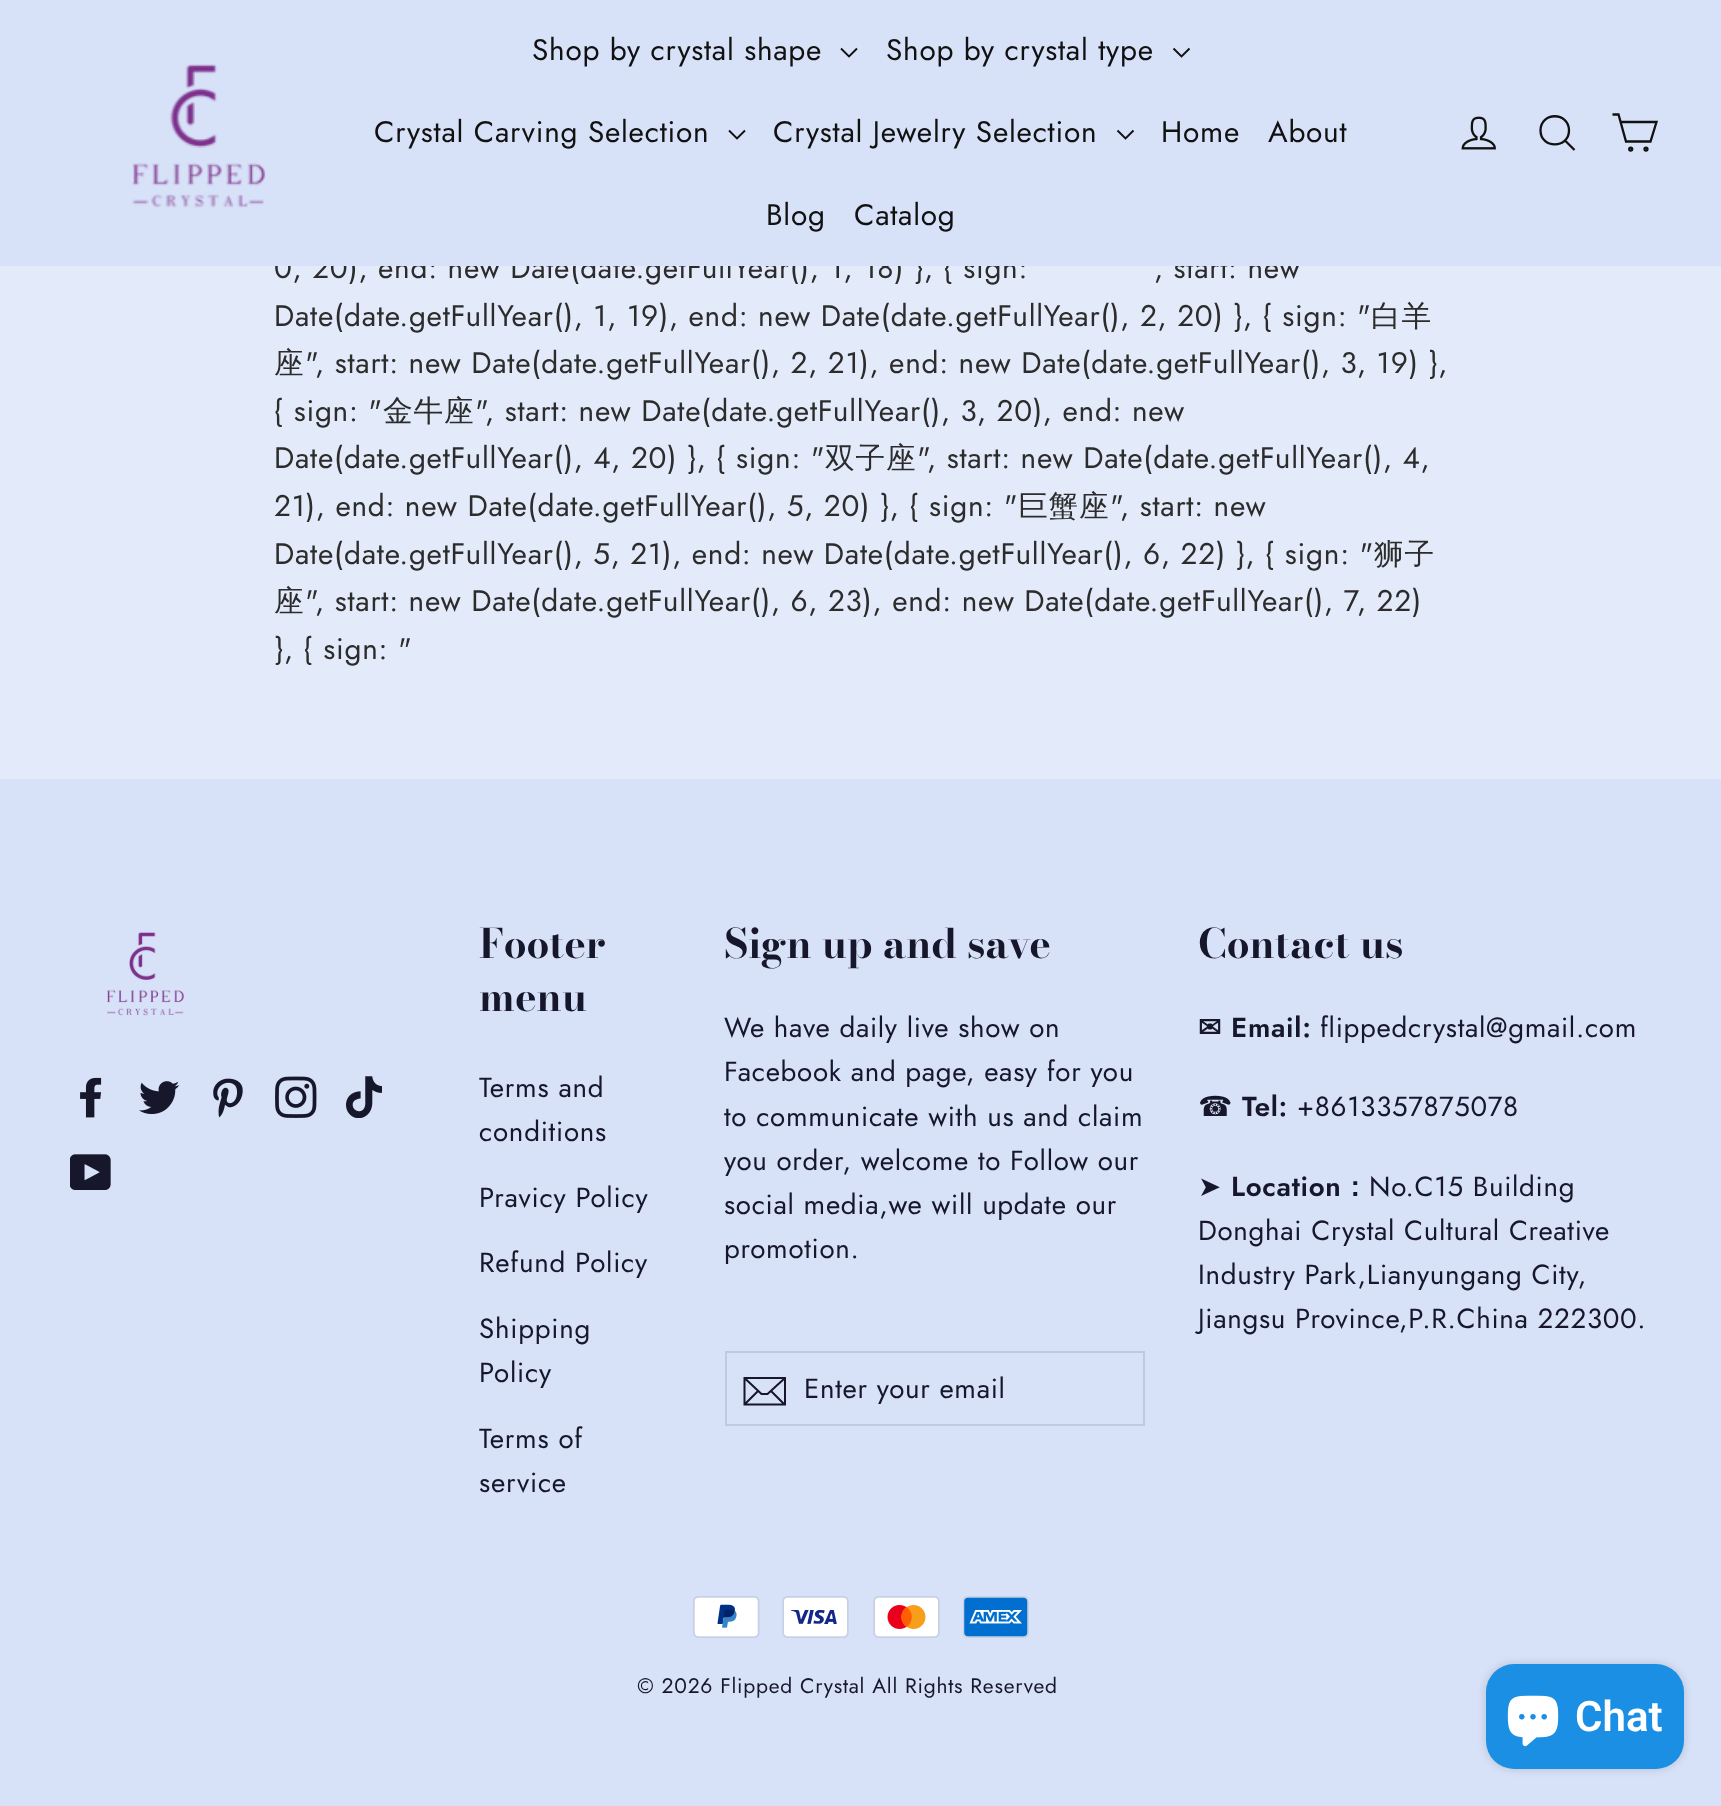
<!DOCTYPE html>
<meta charset="utf-8">
<style>body { margin: 0 } canvas { display: block }</style>
<canvas id="canvas" width="1721" height="1806"></canvas>
<img id="img1" src="img_03.png" hidden>
<img id="img2" src="img_04.png" hidden>
<img id="img3" src="img_05.png" hidden>
<img id="img4" src="img_06.png" hidden>
<img id="img5" src="img_07.png" hidden>
<img id="img6" src="img_08.png" hidden>
<img id="img7" src="img_09.png" hidden>
<img id="img8" src="img_10.png" hidden>
<img id="img9" src="img_11.png" hidden>
<img id="img10" src="img_12.png" hidden>
<img id="img11" src="img_13.png" hidden>
<img id="img12" src="img_14.png" hidden>
<img id="img13" src="img_02.png" hidden>
<img id="img14" src="img_01.png" hidden>
<script>
window.onload = function () {
	const canvas = document.getElementById("canvas");
	const ctx = canvas.getContext("2d");
	ctx.miterLimit = 4;
	ctx.fontKerning = "normal";
	function txt(s, x, y) {
		ctx.fillText(s, x, y);
	}
	function fill(x, y, w, h) {
		ctx.fillRect(x, y, w, h);
	}
	function round(x, y, w, h, r) {
		ctx.beginPath();
		ctx.roundRect(x, y, w, h, r);
		ctx.fill();
	}
	function img(id, x, y, w, h) {
		ctx.drawImage(document.getElementById(id), x, y, w, h);
	}

	ctx.fillStyle = "#E3EBFA";
	fill(0, 0, 1721, 1806);
	ctx.fillStyle = "#D7E1F7";
	fill(0, 779, 1721, 1027);
	img("img1", 107, 932, 77, 84);
	img("img2", 80, 1077, 22, 41);
	img("img3", 139, 1081, 41, 34);
	img("img4", 213, 1078, 30, 40);
	img("img5", 275, 1076, 42, 42);
	img("img6", 346, 1076, 36, 42);
	img("img7", 70, 1154, 41, 36);
	ctx.strokeStyle = "#C0C9DF";
	ctx.lineWidth = 2;
	ctx.strokeRect(726, 1352, 418, 73);
	ctx.beginPath();
	ctx.moveTo(785, 1404.5);
	ctx.lineTo(744.5, 1404.5);
	ctx.lineTo(744.5, 1378);
	ctx.lineTo(785, 1378);
	ctx.closePath();
	ctx.moveTo(744.5, 1378);
	ctx.lineTo(761.5, 1394);
	ctx.lineTo(767.5, 1394);
	ctx.lineTo(785, 1378);
	ctx.moveTo(758, 1391);
	ctx.lineTo(745, 1404);
	ctx.moveTo(784.5, 1404.5);
	ctx.lineTo(771, 1391);
	ctx.strokeStyle = "#17172C";
	ctx.stroke();
	img("img8", 693, 1596, 67, 42);
	img("img9", 782, 1596, 67, 42);
	img("img10", 873, 1596, 67, 42);
	img("img11", 963, 1596, 66, 42);
	ctx.fillStyle = "rgba(0, 0, 0, 0.15)";
	ctx.filter = "blur(4.5px)";
	ctx.beginPath();
	ctx.roundRect(1486, 1664, 198, 105, 28);
	ctx.fill();
	ctx.filter = "none";
	ctx.fillStyle = "#1A8FE3";
	round(1486, 1664, 198, 105, 28);
	img("img12", 1507, 1695, 52, 52);
	ctx.letterSpacing = "0.75px";
	ctx.font = "29.75px Jost";
	ctx.fillStyle = "#2C2C2C";
	txt("0, 20), end: new Date(date.getFullYear(), 1, 18) }, { sign:", 274, 278);
	txt(", start: new", 1154, 278);
	ctx.fillStyle = "#D7E1F7";
	fill(0, 0, 1721, 266);
	ctx.beginPath();
	ctx.moveTo(1117.5, 130.5);
	ctx.lineTo(1125.5, 138.5);
	ctx.lineTo(1133.5, 130.5);
	ctx.strokeStyle = "#111111";
	ctx.lineWidth = 1.9;
	ctx.stroke();
	ctx.fillStyle = "#111111";
	txt("Crystal Jewelry Selection", 773, 142);
	ctx.beginPath();
	ctx.moveTo(729, 130.5);
	ctx.lineTo(737, 138.5);
	ctx.lineTo(745, 130.5);
	ctx.stroke();
	txt("Crystal Carving Selection", 374, 142);
	ctx.beginPath();
	ctx.moveTo(1173.5, 48.5);
	ctx.lineTo(1181.5, 56.5);
	ctx.lineTo(1189.5, 48.5);
	ctx.stroke();
	txt("Shop by crystal type", 886, 60);
	ctx.beginPath();
	ctx.moveTo(841, 48.5);
	ctx.lineTo(849, 56.5);
	ctx.lineTo(857, 48.5);
	ctx.stroke();
	txt("Shop by crystal shape", 532, 60);
	ctx.beginPath();
	ctx.arc(1646, 149.1, 1.5, 0, Math.PI * 2);
	ctx.lineWidth = 2.3;
	ctx.stroke();
	ctx.beginPath();
	ctx.arc(1630.7, 149.1, 1.5, 0, Math.PI * 2);
	ctx.stroke();
	ctx.beginPath();
	ctx.moveTo(1620.5, 122);
	ctx.lineTo(1656.5, 122);
	ctx.lineTo(1650.5, 141.5);
	ctx.lineTo(1626, 141.5);
	ctx.lineTo(1618.5, 114.5);
	ctx.lineTo(1612.5, 114.5);
	ctx.stroke();
	txt("Catalog", 854, 225);
	txt("Blog", 766, 225);
	txt("About", 1268, 142);
	txt("Home", 1161, 142);
	ctx.beginPath();
	ctx.moveTo(1569, 130.5);
	ctx.bezierCurveTo(1569, 149, 1540.5, 149, 1540.5, 130.5);
	ctx.bezierCurveTo(1540.5, 111.5, 1569, 111.5, 1569, 130.5);
	ctx.closePath();
	ctx.moveTo(1574.5, 150);
	ctx.lineTo(1565, 140.5);
	ctx.stroke();
	img("img13", 1461, 116, 35, 34);
	img("img14", 132, 64, 134, 144);
	ctx.fillStyle = "#2C2C2C";
	txt("Date(date.getFullYear(), 1, 19), end: new Date(date.getFullYear(), 2, 20) }, { sign: \"", 274, 326);
	ctx.font = "500 29.75px WenQuanYi Zen Hei";
	txt("白羊", 1371, 326);
	txt("座", 274, 373);
	ctx.font = "29.75px Jost";
	txt("\", start: new Date(date.getFullYear(), 2, 21), end: new Date(date.getFullYear(), 3, 19) },", 305, 373);
	txt("{ sign: \"", 274, 421);
	ctx.font = "500 29.75px WenQuanYi Zen Hei";
	txt("金牛座", 383, 421);
	ctx.font = "29.75px Jost";
	txt("\", start: new Date(date.getFullYear(), 3, 20), end: new", 475, 421);
	txt("Date(date.getFullYear(), 4, 20) }, { sign: \"", 274, 468);
	ctx.font = "500 29.75px WenQuanYi Zen Hei";
	txt("双子座", 825, 468);
	ctx.font = "29.75px Jost";
	txt("\", start: new Date(date.getFullYear(), 4,", 917, 468);
	txt("21), end: new Date(date.getFullYear(), 5, 20) }, { sign: \"", 274, 516);
	ctx.font = "500 29.75px WenQuanYi Zen Hei";
	txt("巨蟹座", 1018, 516);
	ctx.font = "29.75px Jost";
	txt("\", start: new", 1110, 516);
	txt("Date(date.getFullYear(), 5, 21), end: new Date(date.getFullYear(), 6, 22) }, { sign: \"", 274, 564);
	ctx.font = "500 29.75px WenQuanYi Zen Hei";
	txt("狮子", 1374, 564);
	txt("座", 274, 611);
	ctx.font = "29.75px Jost";
	txt("\", start: new Date(date.getFullYear(), 6, 23), end: new Date(date.getFullYear(), 7, 22)", 305, 611);
	txt("}, { sign: \"", 274, 659);
	ctx.letterSpacing = "0px";
	ctx.font = "bold 40.5px Bodoni Moda";
	ctx.fillStyle = "#17172C";
	txt("Footer", 479, 958);
	txt("menu", 479, 1011);
	ctx.letterSpacing = "0.75px";
	ctx.font = "27.7px Jost";
	txt("Terms and", 479, 1097);
	txt("conditions", 479, 1141);
	txt("Pravicy Policy", 479, 1207);
	txt("Refund Policy", 479, 1272);
	txt("Shipping", 479, 1338);
	txt("Policy", 479, 1382);
	txt("Terms of", 479, 1448);
	txt("service", 479, 1492);
	ctx.letterSpacing = "0px";
	ctx.font = "bold 40.5px Bodoni Moda";
	txt("Sign up and save", 724, 958);
	ctx.letterSpacing = "0.7px";
	ctx.font = "27.7px Jost";
	txt("We have daily live show on", 724, 1037);
	txt("Facebook and page, easy for you", 724, 1081);
	txt("to communicate with us and claim", 724, 1126);
	txt("you order, welcome to Follow our", 724, 1170);
	txt("social media,we will update our", 724, 1214);
	txt("promotion.", 724, 1258);
	txt("Enter your email", 804, 1398);
	ctx.letterSpacing = "0px";
	ctx.font = "bold 40.5px Bodoni Moda";
	txt("Contact us", 1198, 958);
	ctx.letterSpacing = "0.7px";
	ctx.font = "bold 27.7px DejaVu Sans";
	txt("✉", 1198, 1037);
	ctx.font = "600 27.7px Jost";
	txt("Email:", 1231, 1037);
	ctx.font = "27.7px Jost";
	txt("flippedcrystal@gmail.com", 1320, 1037);
	ctx.font = "27.7px DejaVu Sans";
	txt("☎", 1198, 1116);
	ctx.font = "600 27.7px Jost";
	txt("Tel:", 1242, 1116);
	ctx.font = "27.7px Jost";
	txt("+8613357875078", 1297, 1116);
	ctx.font = "27.7px DejaVu Sans";
	txt("➤", 1198, 1196);
	ctx.font = "600 27.7px Jost";
	txt("Location", 1231, 1196);
	ctx.font = "bold 27.7px WenQuanYi Zen Hei";
	txt("：", 1341, 1196);
	ctx.font = "27.7px Jost";
	txt("No.C15 Building", 1369, 1196);
	txt("Donghai Crystal Cultural Creative", 1198, 1240);
	txt("Industry Park,Lianyungang City,", 1198, 1284);
	txt("Jiangsu Province,P.R.China 222300.", 1198, 1328);
	ctx.letterSpacing = "0.75px";
	ctx.font = "21px Jost";
	txt("© 2026 Flipped Crystal All Rights Reserved", 637, 1693);
	ctx.letterSpacing = "0px";
	ctx.font = "600 42px Roboto";
	ctx.fillStyle = "#FFFFFF";
	txt("Chat", 1575, 1731);
};
</script>
